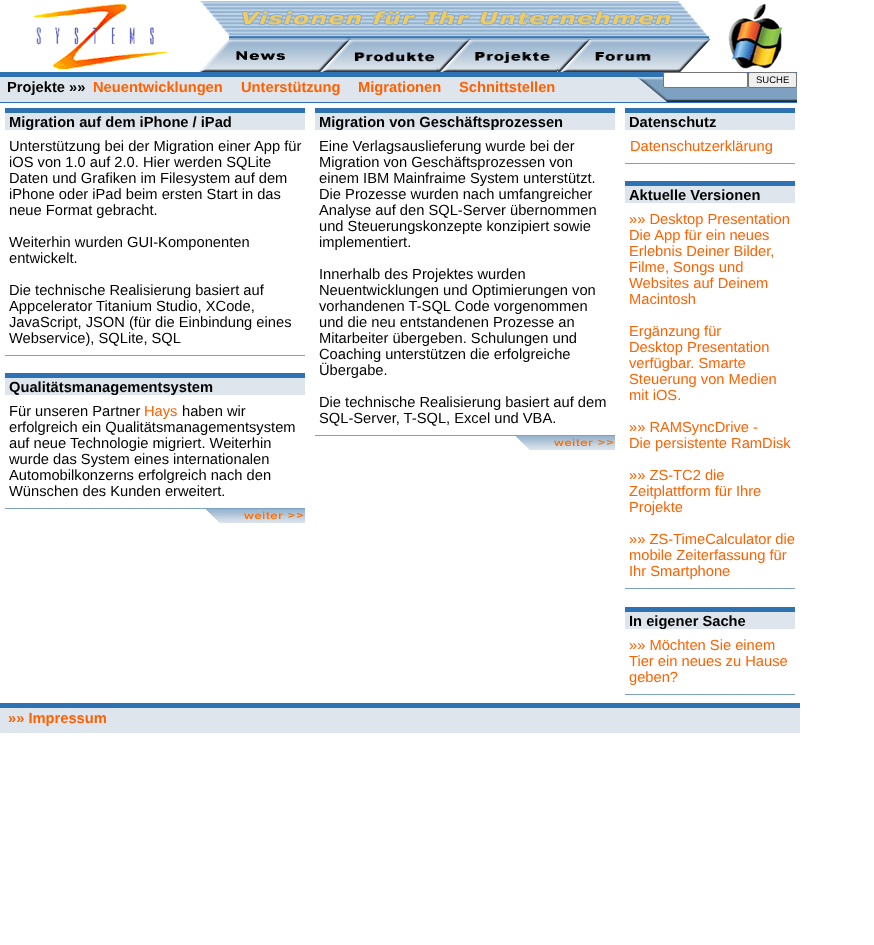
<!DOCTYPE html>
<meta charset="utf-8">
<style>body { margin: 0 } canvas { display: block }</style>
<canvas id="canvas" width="874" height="945"></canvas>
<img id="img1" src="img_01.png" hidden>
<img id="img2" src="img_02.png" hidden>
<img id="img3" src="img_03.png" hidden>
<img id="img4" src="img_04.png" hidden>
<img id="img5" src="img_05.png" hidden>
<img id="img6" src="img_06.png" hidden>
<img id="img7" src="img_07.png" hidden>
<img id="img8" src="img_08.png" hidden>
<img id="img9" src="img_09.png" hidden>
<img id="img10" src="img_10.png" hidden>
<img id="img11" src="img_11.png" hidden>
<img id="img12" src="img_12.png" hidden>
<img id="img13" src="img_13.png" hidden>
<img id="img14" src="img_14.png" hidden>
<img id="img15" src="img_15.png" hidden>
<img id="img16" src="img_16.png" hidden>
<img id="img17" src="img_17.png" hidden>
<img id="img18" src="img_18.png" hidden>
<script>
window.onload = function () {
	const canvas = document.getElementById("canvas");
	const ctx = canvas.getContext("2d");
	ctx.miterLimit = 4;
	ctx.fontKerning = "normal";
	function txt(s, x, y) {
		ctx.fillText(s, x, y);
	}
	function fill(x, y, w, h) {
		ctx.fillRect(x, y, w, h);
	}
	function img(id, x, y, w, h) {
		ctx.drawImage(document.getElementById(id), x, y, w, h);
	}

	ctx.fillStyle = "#FFFFFF";
	fill(0, 0, 874, 945);
	img("img1", 33, 4, 134, 65);
	img("img2", 200, 1, 510, 38);
	img("img3", 728, 4, 55, 65);
	img("img4", 199, 39, 32, 33);
	img("img5", 231, 39, 87, 33);
	img("img6", 318, 39, 33, 33);
	img("img7", 351, 39, 87, 33);
	img("img6", 438, 39, 33, 33);
	img("img8", 471, 39, 87, 33);
	img("img6", 558, 39, 33, 33);
	img("img9", 591, 39, 87, 33);
	img("img10", 678, 39, 33, 33);
	img("img11", 637, 72, 160, 31);
	ctx.beginPath();
	ctx.roundRect(663.5, 72.5, 84, 15, 1.5);
	ctx.fill();
	ctx.strokeStyle = "#767676";
	ctx.stroke();
	ctx.fillStyle = "#EFEFEF";
	ctx.beginPath();
	ctx.roundRect(748.5, 72.5, 48, 15, 1.5);
	ctx.fill();
	ctx.stroke();
	img("img12", 0, 72, 637, 31);
	img("img13", 5, 108, 300, 22);
	img("img14", 5, 355, 300, 2);
	img("img13", 5, 373, 300, 22);
	img("img14", 5, 508, 300, 2);
	img("img15", 205, 509, 100, 14);
	img("img13", 315, 108, 300, 22);
	img("img14", 315, 435, 300, 2);
	img("img15", 515, 436, 100, 14);
	img("img16", 625, 108, 170, 22);
	img("img17", 625, 163, 170, 2);
	img("img16", 625, 181, 170, 22);
	img("img17", 625, 588, 170, 2);
	img("img16", 625, 607, 170, 22);
	img("img17", 625, 694, 170, 2);
	img("img18", 0, 703, 800, 30);
	ctx.font = "9.5px Liberation Sans";
	ctx.fillStyle = "#000000";
	txt("SUCHE", 756, 83);
	ctx.font = "bold 14.7px Liberation Sans";
	txt("Projekte »»", 7, 92);
	ctx.fillStyle = "#FF6100";
	txt("Neuentwicklungen", 93, 92);
	txt("Unterstützung", 241, 92);
	txt("Migrationen", 358, 92);
	txt("Schnittstellen", 459, 92);
	ctx.fillStyle = "#000000";
	txt("Migration auf dem iPhone / iPad", 9, 127);
	ctx.font = "14.7px Liberation Sans";
	txt("Unterstützung bei der Migration einer App für", 9, 151);
	txt("iOS von 1.0 auf 2.0. Hier werden SQLite", 9, 167);
	txt("Daten und Grafiken im Filesystem auf dem", 9, 183);
	txt("iPhone oder iPad beim ersten Start in das", 9, 199);
	txt("neue Format gebracht.", 9, 215);
	txt("Weiterhin wurden GUI-Komponenten", 9, 247);
	txt("entwickelt.", 9, 263);
	txt("Die technische Realisierung basiert auf", 9, 295);
	txt("Appcelerator Titanium Studio, XCode,", 9, 311);
	txt("JavaScript, JSON (für die Einbindung eines", 9, 327);
	txt("Webservice), SQLite, SQL", 9, 343);
	ctx.font = "bold 14.7px Liberation Sans";
	txt("Qualitätsmanagementsystem", 9, 392);
	ctx.font = "14.7px Liberation Sans";
	txt("Für unseren Partner", 9, 416);
	ctx.fillStyle = "#FF6100";
	txt("Hays", 144, 416);
	ctx.fillStyle = "#000000";
	txt("haben wir", 182, 416);
	txt("erfolgreich ein Qualitätsmanagementsystem", 9, 432);
	txt("auf neue Technologie migriert. Weiterhin", 9, 448);
	txt("wurde das System eines internationalen", 9, 464);
	txt("Automobilkonzerns erfolgreich nach den", 9, 480);
	txt("Wünschen des Kunden erweitert.", 9, 496);
	ctx.font = "bold 14.7px Liberation Sans";
	txt("Migration von Geschäftsprozessen", 319, 127);
	ctx.font = "14.7px Liberation Sans";
	txt("Eine Verlagsauslieferung wurde bei der", 319, 151);
	txt("Migration von Geschäftsprozessen von", 319, 167);
	txt("einem IBM Mainfraime System unterstützt.", 319, 183);
	txt("Die Prozesse wurden nach umfangreicher", 319, 199);
	txt("Analyse auf den SQL-Server übernommen", 319, 215);
	txt("und Steuerungskonzepte konzipiert sowie", 319, 231);
	txt("implementiert.", 319, 247);
	txt("Innerhalb des Projektes wurden", 319, 279);
	txt("Neuentwicklungen und Optimierungen von", 319, 295);
	txt("vorhandenen T-SQL Code vorgenommen", 319, 311);
	txt("und die neu entstandenen Prozesse an", 319, 327);
	txt("Mitarbeiter übergeben. Schulungen und", 319, 343);
	txt("Coaching unterstützen die erfolgreiche", 319, 359);
	txt("Übergabe.", 319, 375);
	txt("Die technische Realisierung basiert auf dem", 319, 407);
	txt("SQL-Server, T-SQL, Excel und VBA.", 319, 423);
	ctx.font = "bold 14.7px Liberation Sans";
	txt("Datenschutz", 629, 127);
	ctx.font = "14.7px Liberation Sans";
	ctx.fillStyle = "#FF6100";
	txt("Datenschutzerklärung", 630, 151);
	ctx.font = "bold 14.7px Liberation Sans";
	ctx.fillStyle = "#000000";
	txt("Aktuelle Versionen", 629, 200);
	ctx.font = "14.7px Liberation Sans";
	ctx.fillStyle = "#FF6100";
	txt("»» Desktop Presentation", 629, 224);
	txt("Die App für ein neues", 629, 240);
	txt("Erlebnis Deiner Bilder,", 629, 256);
	txt("Filme, Songs und", 629, 272);
	txt("Websites auf Deinem", 629, 288);
	txt("Macintosh", 629, 304);
	txt("Ergänzung für", 629, 336);
	txt("Desktop Presentation", 629, 352);
	txt("verfügbar. Smarte", 629, 368);
	txt("Steuerung von Medien", 629, 384);
	txt("mit iOS.", 629, 400);
	txt("»» RAMSyncDrive -", 629, 432);
	txt("Die persistente RamDisk", 629, 448);
	txt("»» ZS-TC2 die", 629, 480);
	txt("Zeitplattform für Ihre", 629, 496);
	txt("Projekte", 629, 512);
	txt("»» ZS-TimeCalculator die", 629, 544);
	txt("mobile Zeiterfassung für", 629, 560);
	txt("Ihr Smartphone", 629, 576);
	ctx.font = "bold 14.7px Liberation Sans";
	ctx.fillStyle = "#000000";
	txt("In eigener Sache", 629, 626);
	ctx.font = "14.7px Liberation Sans";
	ctx.fillStyle = "#FF6100";
	txt("»» Möchten Sie einem", 629, 650);
	txt("Tier ein neues zu Hause", 629, 666);
	txt("geben?", 629, 682);
	ctx.font = "bold 14.7px Liberation Sans";
	txt("»» Impressum", 8, 723);
};
</script>
